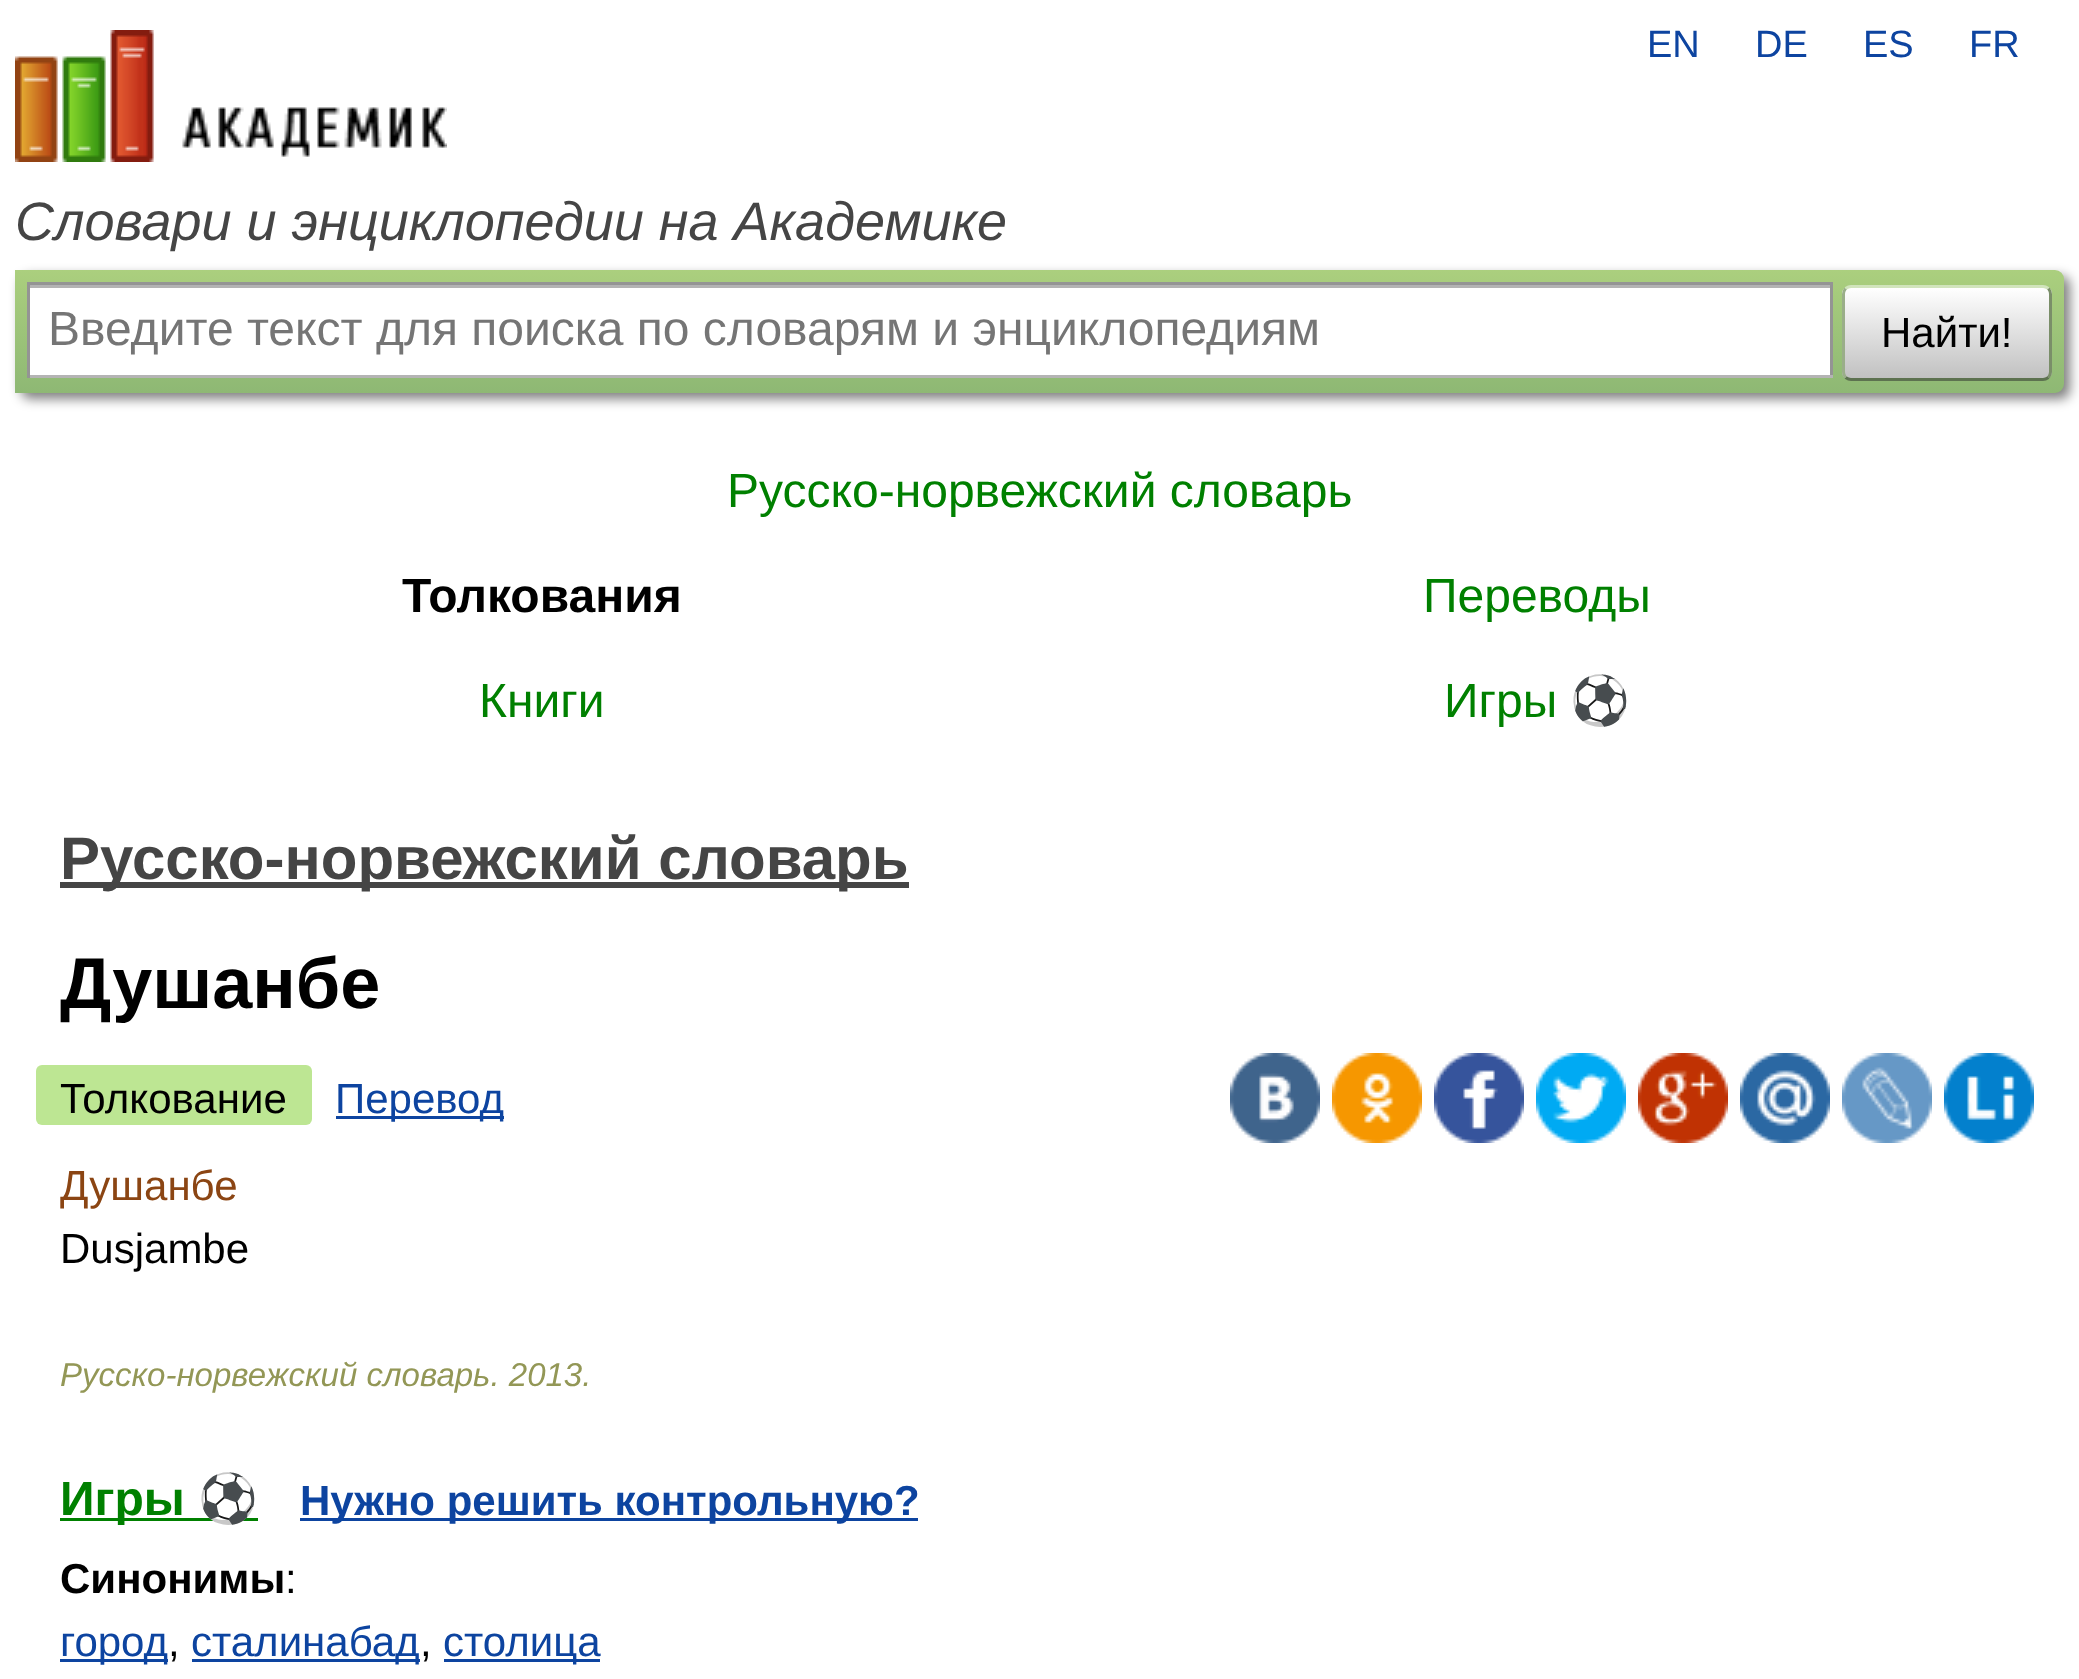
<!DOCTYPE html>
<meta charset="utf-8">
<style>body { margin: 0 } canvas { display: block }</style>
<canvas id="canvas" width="2079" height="1679"></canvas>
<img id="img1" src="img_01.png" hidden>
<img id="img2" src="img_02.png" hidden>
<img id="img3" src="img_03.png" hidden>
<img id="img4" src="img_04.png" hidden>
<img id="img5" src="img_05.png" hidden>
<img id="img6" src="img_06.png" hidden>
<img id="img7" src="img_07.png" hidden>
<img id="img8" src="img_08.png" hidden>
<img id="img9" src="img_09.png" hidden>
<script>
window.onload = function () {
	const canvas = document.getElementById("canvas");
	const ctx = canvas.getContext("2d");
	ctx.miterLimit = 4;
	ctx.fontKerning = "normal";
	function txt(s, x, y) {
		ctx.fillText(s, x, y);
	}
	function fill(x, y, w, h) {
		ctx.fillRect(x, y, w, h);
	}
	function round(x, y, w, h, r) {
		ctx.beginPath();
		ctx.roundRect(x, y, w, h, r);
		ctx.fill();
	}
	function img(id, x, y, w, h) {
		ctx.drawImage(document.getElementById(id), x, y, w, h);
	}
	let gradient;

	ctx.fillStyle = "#FFFFFF";
	fill(0, 0, 2079, 1679);
	img("img1", 15, 30, 432, 132);
	ctx.fillStyle = "rgba(0, 0, 0, 0.5)";
	ctx.filter = "blur(6px)";
	ctx.beginPath();
	ctx.roundRect(21, 276, 2049, 123, 9);
	ctx.fill();
	ctx.filter = "none";
	gradient = ctx.createLinearGradient(1040, 270, 1040, 393);
	gradient.addColorStop(0, "#ABCF7E");
	gradient.addColorStop(1, "#8EB874");
	ctx.fillStyle = gradient;
	ctx.beginPath();
	ctx.roundRect(15, 270, 2049, 123, [0, 9, 9, 0]);
	ctx.fill();
	ctx.fillStyle = "#FFFFFF";
	fill(30, 288, 1800, 87);
	ctx.fillStyle = "#B3B3B3";
	fill(30, 285, 1800, 3);
	ctx.fillStyle = "#949494";
	fill(27, 282, 1806, 3);
	fill(1830, 282, 3, 96);
	ctx.fillStyle = "#B4B4B4";
	fill(27, 375, 1806, 3);
	ctx.fillStyle = "#949494";
	fill(27, 282, 3, 96);
	ctx.save();
	ctx.beginPath();
	ctx.roundRect(1842, 285, 210, 96, 9);
	ctx.clip();
	gradient = ctx.createLinearGradient(1947, 288, 1947, 378);
	gradient.addColorStop(0, "#FFFFFF");
	gradient.addColorStop(1, "#C1C1C1");
	ctx.fillStyle = gradient;
	fill(1842, 288, 210, 90);
	ctx.restore();
	ctx.beginPath();
	ctx.moveTo(1845.5, 288.5);
	ctx.bezierCurveTo(1847, 287.5, 1849, 286.5, 1851, 286.5);
	ctx.lineTo(2043, 286.5);
	ctx.bezierCurveTo(2045, 286.5, 2047, 287.5, 2048.5, 288.5);
	ctx.strokeStyle = "#D1E4BC";
	ctx.lineWidth = 3;
	ctx.stroke();
	ctx.beginPath();
	ctx.moveTo(2048.5, 288.5);
	ctx.bezierCurveTo(2049.5, 290, 2050.5, 292, 2050.5, 294);
	ctx.lineTo(2050.5, 372);
	ctx.bezierCurveTo(2050.5, 374, 2049.5, 376, 2048.5, 377.5);
	ctx.strokeStyle = "#7A8E69";
	ctx.stroke();
	ctx.beginPath();
	ctx.moveTo(2048.5, 377.5);
	ctx.bezierCurveTo(2047, 378.5, 2045, 379.5, 2043, 379.5);
	ctx.lineTo(1851, 379.5);
	ctx.bezierCurveTo(1849, 379.5, 1847, 378.5, 1845.5, 377.5);
	ctx.strokeStyle = "#5D7250";
	ctx.stroke();
	ctx.beginPath();
	ctx.moveTo(1845.5, 377.5);
	ctx.bezierCurveTo(1844.5, 376, 1843.5, 374, 1843.5, 372);
	ctx.lineTo(1843.5, 294);
	ctx.bezierCurveTo(1843.5, 292, 1844.5, 290, 1845.5, 288.5);
	ctx.strokeStyle = "#9AAE89";
	ctx.stroke();
	ctx.fillStyle = "#454545";
	fill(60, 882, 849, 6);
	ctx.fillStyle = "#BDE693";
	round(36, 1065, 276, 60, 6);
	ctx.fillStyle = "#0D44A0";
	fill(336, 1116, 168, 3);
	img("img2", 1230, 1053, 90, 90);
	img("img3", 1332, 1053, 90, 90);
	img("img4", 1434, 1053, 90, 90);
	img("img5", 1536, 1053, 90, 90);
	img("img6", 1638, 1053, 90, 90);
	img("img7", 1740, 1053, 90, 90);
	img("img8", 1842, 1053, 90, 90);
	img("img9", 1944, 1053, 90, 90);
	ctx.fillStyle = "#008000";
	fill(60, 1518, 198, 3);
	ctx.fillStyle = "#0D44A0";
	fill(300, 1518, 618, 3);
	fill(60, 1659, 108, 3);
	fill(192, 1659, 228, 3);
	fill(444, 1659, 156, 3);
	ctx.font = "38px Liberation Sans";
	txt("EN", 1647, 57);
	txt("DE", 1755, 57);
	txt("ES", 1863, 57);
	txt("FR", 1969, 57);
	ctx.font = "italic 54px Liberation Sans";
	ctx.fillStyle = "#454545";
	txt("Словари и энциклопедии на Академике", 15, 240);
	ctx.font = "48px Liberation Sans";
	ctx.fillStyle = "#757575";
	txt("Введите текст для поиска по словарям и энциклопедиям", 48, 345);
	ctx.font = "42px Liberation Sans";
	ctx.fillStyle = "#000000";
	txt("Найти!", 1881, 347);
	ctx.font = "48px Liberation Sans";
	ctx.fillStyle = "#008000";
	txt("Русско-норвежский словарь", 727, 507);
	ctx.font = "bold 48px Liberation Sans";
	ctx.fillStyle = "#000000";
	txt("Толкования", 402, 612);
	ctx.font = "48px Liberation Sans";
	ctx.fillStyle = "#008000";
	txt("Переводы", 1423, 612);
	txt("Книги", 479, 717);
	txt("Игры", 1444, 717);
	ctx.font = "48px Noto Color Emoji";
	txt("⚽", 1570, 717);
	ctx.font = "bold 60px Liberation Sans";
	ctx.fillStyle = "#454545";
	txt("Русско-норвежский словарь", 60, 879);
	ctx.font = "bold 72px Liberation Sans";
	ctx.fillStyle = "#000000";
	txt("Душанбе", 60, 1008);
	ctx.font = "42px Liberation Sans";
	txt("Толкование", 60, 1113);
	ctx.fillStyle = "#0D44A0";
	txt("Перевод", 335, 1113);
	ctx.fillStyle = "#8B4513";
	txt("Душанбе", 60, 1200);
	ctx.fillStyle = "#000000";
	txt("Dusjambe", 60, 1263);
	ctx.font = "italic 33px Liberation Sans";
	ctx.fillStyle = "#939756";
	txt("Русско-норвежский словарь. 2013.", 60, 1386);
	ctx.font = "bold 48px Liberation Sans";
	ctx.fillStyle = "#008000";
	txt("Игры", 60, 1515);
	ctx.font = "bold 48px Noto Color Emoji";
	txt("⚽", 198, 1515);
	ctx.font = "bold 42px Liberation Sans";
	ctx.fillStyle = "#0D44A0";
	txt("Нужно решить контрольную?", 300, 1515);
	ctx.fillStyle = "#000000";
	txt("Синонимы", 60, 1593);
	ctx.font = "42px Liberation Sans";
	txt(":", 285, 1593);
	ctx.fillStyle = "#0D44A0";
	txt("город", 60, 1656);
	ctx.fillStyle = "#000000";
	txt(",", 168, 1656);
	ctx.fillStyle = "#0D44A0";
	txt("сталинабад", 191, 1656);
	ctx.fillStyle = "#000000";
	txt(",", 420, 1656);
	ctx.fillStyle = "#0D44A0";
	txt("столица", 443, 1656);
};
</script>
